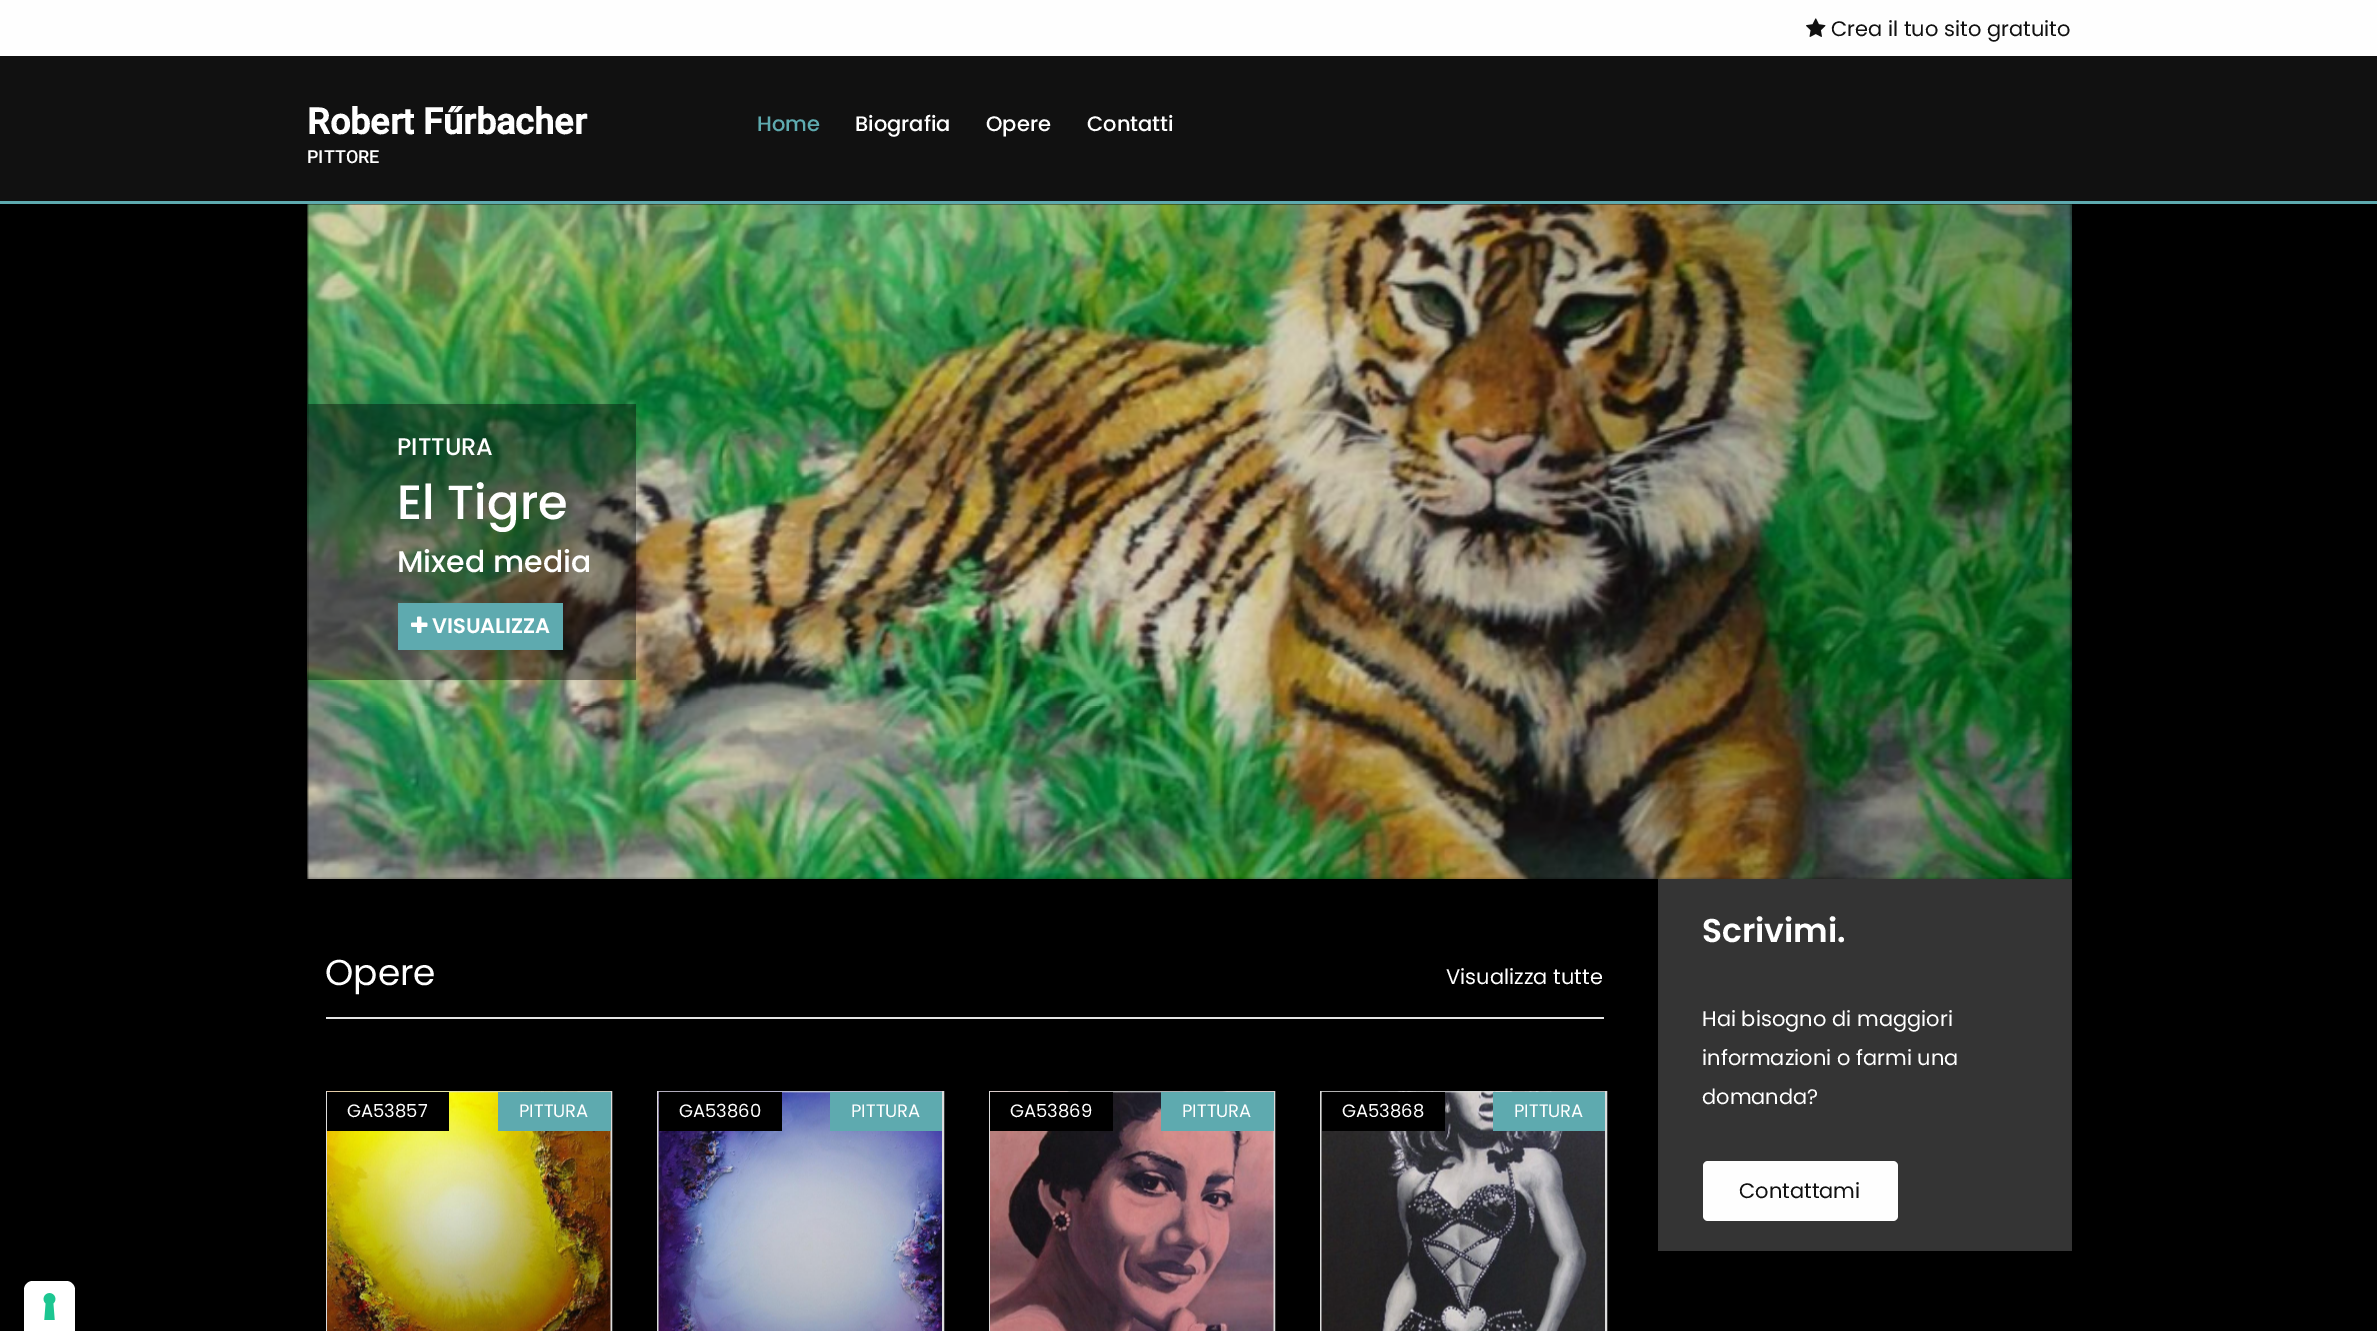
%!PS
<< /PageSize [2377 1331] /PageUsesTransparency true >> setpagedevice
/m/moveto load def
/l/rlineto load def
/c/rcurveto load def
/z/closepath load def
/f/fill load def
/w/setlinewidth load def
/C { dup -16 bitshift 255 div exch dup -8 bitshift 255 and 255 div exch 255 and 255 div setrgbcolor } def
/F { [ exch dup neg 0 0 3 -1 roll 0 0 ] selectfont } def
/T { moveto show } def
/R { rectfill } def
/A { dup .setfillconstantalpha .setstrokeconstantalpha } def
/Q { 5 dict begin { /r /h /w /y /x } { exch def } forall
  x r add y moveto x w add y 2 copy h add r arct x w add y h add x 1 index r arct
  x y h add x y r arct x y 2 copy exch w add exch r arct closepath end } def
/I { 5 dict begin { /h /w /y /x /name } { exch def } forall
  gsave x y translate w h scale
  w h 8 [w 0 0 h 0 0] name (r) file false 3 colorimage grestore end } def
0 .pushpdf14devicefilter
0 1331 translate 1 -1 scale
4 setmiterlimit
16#000000 C
0 0 2377 1331 R
16#FEFEFE C
0 0 2377 56 R
(1.rgb) 1806 18 20 19 I
/Poppins-Regular 21 F
16#111111 C
(Crea il tuo sito gratuito) 1831 36 T
0 56 2377 145 R
16#5EAAAF C
0 201 2377 3 R
/Roboto-Bold 36 F
16#FFFFFF C
(Robert Fűrbacher) 307 134 T
/Roboto-Medium 18 F
(PITTORE) 307 163 T
/Poppins-Medium 21 F
16#5EAAAF C
(Home) 757 131 T
16#FFFFFF C
(Biografia) 855 131 T
(Opere) 986 131 T
(Contatti) 1087 131 T
(2.rgb) 307 204 1765 675 I
0.4 A
16#000000 C
308 404 328 276 R
/Poppins-Medium 24 F
1 A
16#FFFFFF C
(PITTURA) 397 455 T
/Poppins-Medium 48 F
(El Tigre) 397 519 T
/Poppins-Medium 30 F
(Mixed media) 397 572 T
16#5EAAAF C
398 603 165 47 R
(3.rgb) 411 616 17 17 I
/Poppins-SemiBold 21 F
16#FFFFFF C
(VISUALIZZA) 432 633 T
16#E5E5E5 C
326 1017 1278 2 R
/Poppins-Regular 36 F
16#FFFFFF C
(Opere) 325 985 T
/Poppins-Regular 21 F
(Visualizza tutte) 1446 984 T
16#DDDDDD C
2 w
327 1092 284 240 rectstroke
(4.rgb) 327 1091 284 240 I
16#000000 C
327 1092 122 39 R
/Poppins-Regular 18 F
16#FFFFFF C
(GA53857) 347 1117 T
16#5EAAAF C
498 1092 113 39 R
16#FFFFFF C
(PITTURA) 519 1117 T
16#DDDDDD C
658 1092 285 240 rectstroke
(5.rgb) 658 1091 284 240 I
16#000000 C
659 1092 123 39 R
16#FFFFFF C
(GA53860) 679 1117 T
16#5EAAAF C
830 1092 112 39 R
16#FFFFFF C
(PITTURA) 851 1117 T
16#DDDDDD C
990 1092 284 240 rectstroke
(6.rgb) 990 1091 284 240 I
16#000000 C
990 1092 123 39 R
16#FFFFFF C
(GA53869) 1010 1117 T
16#5EAAAF C
1161 1092 113 39 R
16#FFFFFF C
(PITTURA) 1182 1117 T
16#DDDDDD C
1321 1092 285 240 rectstroke
(7.rgb) 1321 1091 284 240 I
16#000000 C
1322 1092 123 39 R
16#FFFFFF C
(GA53868) 1342 1117 T
16#5EAAAF C
1493 1092 112 39 R
16#FFFFFF C
(PITTURA) 1514 1117 T
16#343434 C
1658 879 414 372 R
/Poppins-SemiBold 33 F
16#FFFFFF C
(Scrivimi.) 1702 942 T
/Poppins-Regular 21 F
(Hai bisogno di maggiori) 1702 1026 T
(informazioni o farmi una) 1702 1065 T
(domanda?) 1702 1104 T
16#FEFEFE C
1703 1161 195 60 5 Q f
16#111111 C
(Contattami) 1739 1198 T
16#FFFFFF C
33 1281 m 33 0 l 5 0 9 4 9 9 c 0 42 l -51 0 l 0 -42 l 0 -5 4 -9 9 -9 c z f
(8.rgb) 43 1293 13 27 I
.poppdf14devicefilter showpage
